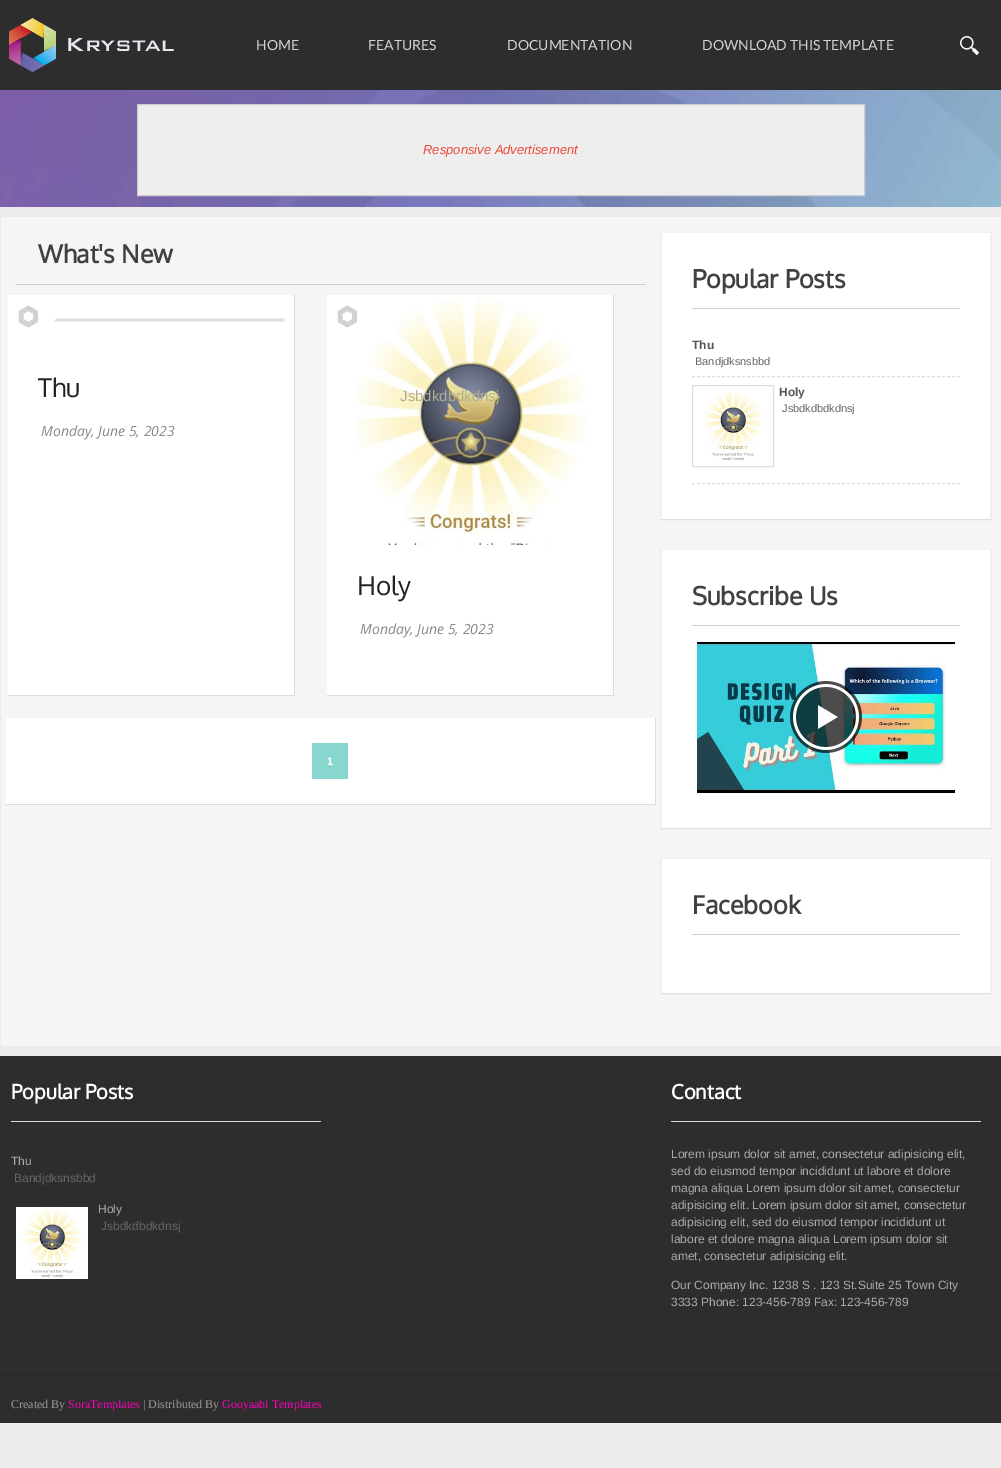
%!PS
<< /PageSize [1001 1468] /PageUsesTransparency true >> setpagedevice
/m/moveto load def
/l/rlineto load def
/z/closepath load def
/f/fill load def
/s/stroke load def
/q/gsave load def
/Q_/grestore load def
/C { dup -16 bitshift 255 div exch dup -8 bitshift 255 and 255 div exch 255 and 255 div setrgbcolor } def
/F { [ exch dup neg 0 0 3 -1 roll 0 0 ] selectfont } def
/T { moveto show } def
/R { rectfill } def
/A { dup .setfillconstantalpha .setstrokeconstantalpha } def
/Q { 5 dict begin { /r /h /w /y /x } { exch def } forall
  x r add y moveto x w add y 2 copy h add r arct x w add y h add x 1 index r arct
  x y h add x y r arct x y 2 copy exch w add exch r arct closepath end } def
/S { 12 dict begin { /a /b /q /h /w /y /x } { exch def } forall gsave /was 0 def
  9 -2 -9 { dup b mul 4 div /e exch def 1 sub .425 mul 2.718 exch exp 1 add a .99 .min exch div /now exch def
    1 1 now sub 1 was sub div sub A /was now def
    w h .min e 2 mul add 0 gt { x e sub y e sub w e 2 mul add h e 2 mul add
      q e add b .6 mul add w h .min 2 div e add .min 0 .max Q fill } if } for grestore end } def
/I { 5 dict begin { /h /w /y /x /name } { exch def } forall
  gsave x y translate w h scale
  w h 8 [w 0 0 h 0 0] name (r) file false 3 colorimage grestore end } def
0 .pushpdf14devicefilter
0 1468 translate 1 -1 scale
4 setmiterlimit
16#EBEBEB C
0 0 1001 1468 R
16#2D2D2D C
0 0 1001 90 R
(1.rgb) 9 18 165 55 I
/Lato-Regular 14 F
16#D3D3D3 C
(HOME) 256 50 T
(FEATURES) 368 50 T
(DOCUMENTATION) 507 50 T
(DOWNLOAD THIS TEMPLATE) 702 50 T
(2.rgb) 960 36 19 19 I
(3.rgb) 0 90 1001 117 I
16#EEEEEE C
137.5 104.5 m 727 0 l 0 91 l -727 0 l z q f Q_
16#CCCCCC C
s
/LiberationSans-Italic 13 F
16#EB4938 C
(Responsive Advertisement) 423 154 T
16#F5F5F5 C
1 217 1000 829 R
16#CECECE C
16 284 630 1 R
/Oxygen-Bold 25 F
16#414141 C
(What's New) 38 263 T
16#FFFFFF C
8 295 286 400 R
16#DCDCDC C
294 295 1 401 R
8 695 287 1 R
16#CCCCCC C
18 319 266 2 0 1 1 S
(4.rgb) 17 305 40 23 I
/Oxygen-Regular 26 F
16#222222 C
(Thu) 38 397 T
/OpenSans-Italic 14 F
16#888888 C
(Monday, June 5, 2023) 41 436 T
16#FFFFFF C
327 295 286 400 R
16#DCDCDC C
613 295 1 401 R
327 695 287 1 R
(6.rgb) 354 297 234 248 I
(5.rgb) 337 305 20 23 I
/LiberationSans-Regular 15 F
16#B2AE94 C
(Jsbdkdbdkdnsj) 400 401 T
/Oxygen-Regular 26 F
16#222222 C
(Holy) 357 595 T
/OpenSans-Italic 14 F
16#888888 C
(Monday, June 5, 2023) 360 634 T
16#FFFFFF C
6 718 649 86 R
16#DCDCDC C
655 718 1 87 R
6 804 650 1 R
16#88D7CF C
312 743 36 36 R
/LiberationSans-Bold 11 F
16#FFFFFF C
(1) 327 765 T
16#000000 C
661 233 330 287 0 .5 .1 S
16#FFFFFF C
662 233 328 286 R
16#F0F0F0 C
661 232 330 1 R
990 232 1 287 R
661 232 1 287 R
16#CECECE C
692 308 268 1 R
/Oxygen-Bold 25 F
16#414141 C
(Popular Posts) 692 288 T
16#DDDDDD C
[3 2] 0 setdash
692 376.5 m 268 0 l s
/LiberationSans-Bold 12 F
16#555555 C
(Thu) 692 349 T
/LiberationSans-Regular 11 F
16#666666 C
(Bandjdksnsbbd) 695 365 T
16#DDDDDD C
692 483.5 m 268 0 l s
[] 0 setdash
692.5 385.5 81 81 rectstroke
(7.rgb) 705 390 57 72 I
/LiberationSans-Bold 12 F
16#555555 C
(Holy) 779 396 T
/LiberationSans-Regular 11 F
16#666666 C
(Jsbdkdbdkdnsj) 782 412 T
16#000000 C
661 550 330 279 0 .5 .1 S
16#FFFFFF C
662 550 328 278 R
16#F0F0F0 C
661 549 330 1 R
990 549 1 279 R
661 549 1 279 R
16#CECECE C
692 625 268 1 R
/Oxygen-Bold 25 F
16#414141 C
(Subscribe Us) 692 605 T
16#000000 C
697 792 258 1 R
(8.rgb) 697 642 258 150 I
(9.rgb) 790 681 72 72 I
661 859 330 135 0 .5 .1 S
16#FFFFFF C
662 859 328 134 R
16#F0F0F0 C
661 858 330 1 R
990 858 1 135 R
661 858 1 135 R
16#CECECE C
692 934 268 1 R
16#414141 C
(Facebook) 692 914 T
16#2D2D2D C
0 1056 1001 367 R
16#D8D8D8 C
11 1121 310 1 R
/Oxygen-Bold 20 F
16#FFFFFF C
(Popular Posts) 11 1099 T
/LiberationSans-Regular 12 F
16#AAAAAA C
(Thu) 11 1165 T
16#666666 C
(Bandjdksnsbbd) 14 1182 T
(10.rgb) 16 1207 72 72 I
16#AAAAAA C
(Holy) 98 1213 T
16#666666 C
(Jsbdkdbdkdnsj) 101 1230 T
16#D8D8D8 C
671 1121 310 1 R
/Oxygen-Bold 20 F
16#FFFFFF C
(Contact) 671 1099 T
/LiberationSans-Regular 12 F
16#AAAAAA C
(Lorem ipsum dolor sit amet, consectetur adipisicing elit,) 671 1158 T
(sed do eiusmod tempor incididunt ut labore et dolore) 671 1175 T
(magna aliqua Lorem ipsum dolor sit amet, consectetur) 671 1192 T
(adipisicing elit. Lorem ipsum dolor sit amet, consectetur) 671 1209 T
(adipisicing elit, sed do eiusmod tempor incididunt ut) 671 1226 T
(labore et dolore magna aliqua Lorem ipsum dolor sit) 671 1243 T
(amet, consectetur adipisicing elit.) 671 1260 T
(Our Company Inc. 1238 S . 123 St.Suite 25 Town City) 671 1289 T
(3333 Phone: 123-456-789 Fax: 123-456-789) 671 1306 T
16#333333 C
0 1369 1001 1 R
/LiberationSerif-Regular 12 F
16#999999 C
(Created By) 11 1408 T
16#FF00BA C
(SoraTemplates) 68 1408 T
16#999999 C
(| Distributed By) 143 1408 T
16#FF00BA C
(Gooyaabi Templates) 222 1408 T
.poppdf14devicefilter showpage
